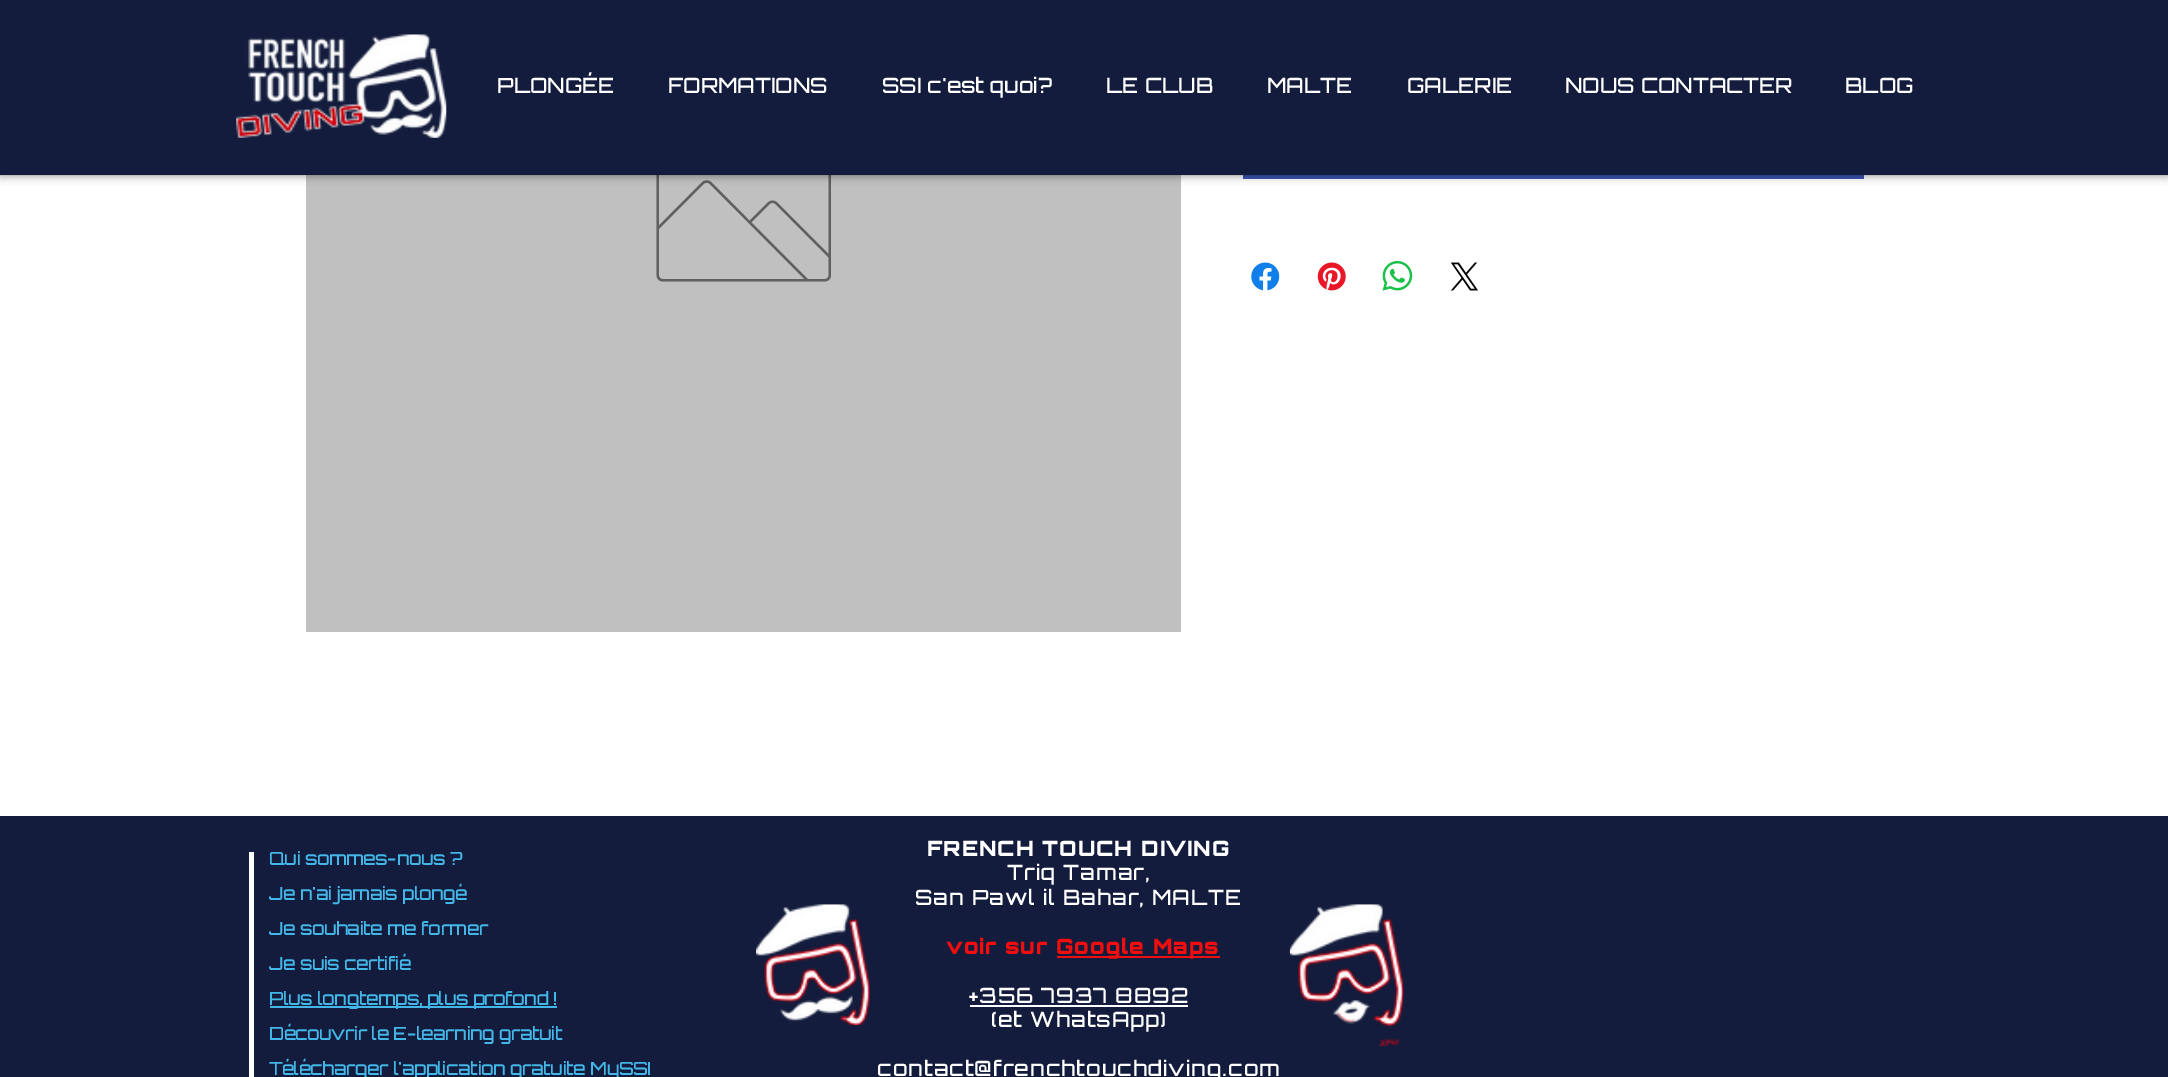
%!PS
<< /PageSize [2168 1077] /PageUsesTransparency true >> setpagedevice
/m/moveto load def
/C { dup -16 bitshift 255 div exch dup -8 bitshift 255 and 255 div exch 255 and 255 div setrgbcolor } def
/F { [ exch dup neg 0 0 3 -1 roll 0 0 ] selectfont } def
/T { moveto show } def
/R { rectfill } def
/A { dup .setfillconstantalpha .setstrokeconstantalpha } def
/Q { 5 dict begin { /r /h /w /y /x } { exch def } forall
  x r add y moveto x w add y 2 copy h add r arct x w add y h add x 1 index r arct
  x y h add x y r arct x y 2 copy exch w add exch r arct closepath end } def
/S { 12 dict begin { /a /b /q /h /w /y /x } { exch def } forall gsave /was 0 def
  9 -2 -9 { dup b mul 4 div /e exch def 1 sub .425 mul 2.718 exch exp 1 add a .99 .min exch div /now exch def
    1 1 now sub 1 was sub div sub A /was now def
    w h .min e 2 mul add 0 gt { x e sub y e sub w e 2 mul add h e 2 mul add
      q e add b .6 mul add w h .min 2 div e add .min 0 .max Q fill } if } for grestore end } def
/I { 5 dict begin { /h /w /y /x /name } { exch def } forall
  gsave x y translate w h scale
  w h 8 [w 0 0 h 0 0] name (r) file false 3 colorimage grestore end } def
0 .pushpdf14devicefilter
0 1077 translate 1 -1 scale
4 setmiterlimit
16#FFFFFF C
0 0 2168 1077 R
16#C0C0C0 C
306 175 875 457 R
(2.rgb) 656 175 175 107 I
16#3A54B4 C
1243 175 621 4 R
16#000000 C
0 0 2168 175 0 4.5 .5 S
16#131C3C C
0 0 2168 175 R
(1.rgb) 236 34 211 104 I
/Orbitron-Medium 21 F
16#FFFFFF C
(PLONGÉE) 497 93 T
(FORMATIONS) 668 93 T
(SSI c'est quoi?) 882 93 T
(LE CLUB) 1106 93 T
(MALTE) 1267 93 T
(GALERIE) 1407 93 T
(NOUS CONTACTER) 1565 93 T
(BLOG) 1845 93 T
(3.rgb) 1251 262 29 29 I
(4.rgb) 1317 262 29 29 I
(5.rgb) 1382 260 31 31 I
(6.rgb) 1450 262 28 29 I
16#131C3C C
0 816 2168 261 R
16#FFFFFF C
249 852 5 225 R
/Orbitron-Bold 17.5 F
16#43B7E8 C
(Qui sommes-nous ?) 269 865 T
(Je n'ai jamais plongé) 269 900 T
(Je souhaite me former) 269 935 T
(Je suis certifié) 269 970 T
270 1006 287 2 R
(Plus longtemps, plus profond !) 269 1005 T
(Découvrir le E-learning gratuit) 269 1040 T
(Télécharger l'application gratuite MySSI) 269 1075 T
(7.rgb) 756 904 114 121 I
/Orbitron-Black 21 F
16#FFFFFF C
927 856 m 1.05 0 (FRENCH TOUCH DIVING) ashow
/Orbitron-Medium 21 F
1007 880 m 1.05 0 (Triq Tamar,) ashow
915 905 m 1.05 0 (San Pawl il Bahar, MALTE) ashow
/Orbitron-Black 21 F
16#F00E0E C
946 954 m 1.05 0 (voir sur) ashow
1057 956 163 2 R
1056 954 m 1.05 0 (Google Maps) ashow
/Orbitron-Medium 21 F
16#FFFFFF C
969 1003 m 1.05 0 (+356 7937 8892) ashow
970 1005 218 2 R
991 1027 m 1.05 0 (\(et WhatsApp\)) ashow
877 1076 m 1.05 0 (contact@frenchtouchdiving.com) ashow
(8.rgb) 1289 904 115 142 I
.poppdf14devicefilter showpage
